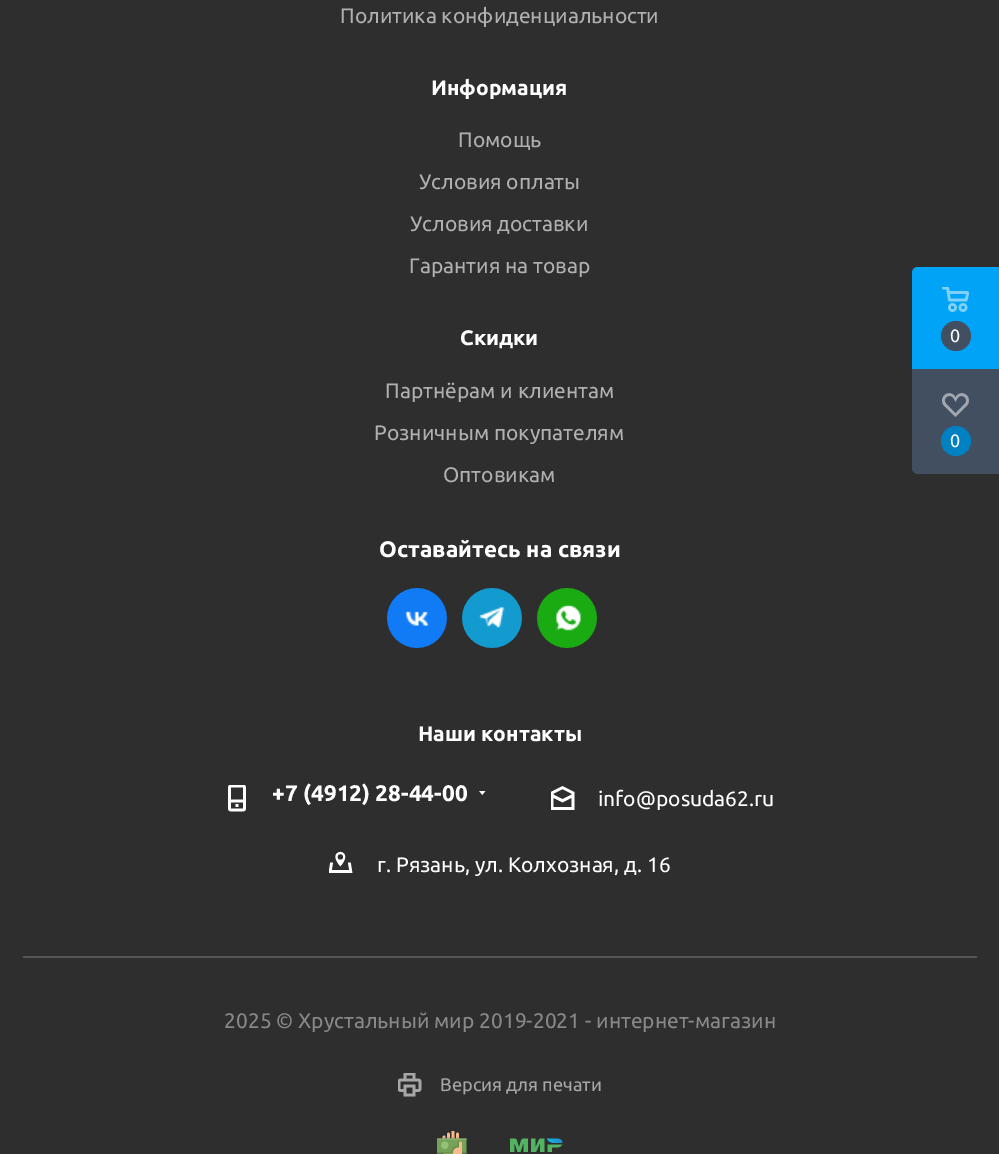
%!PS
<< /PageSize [999 1154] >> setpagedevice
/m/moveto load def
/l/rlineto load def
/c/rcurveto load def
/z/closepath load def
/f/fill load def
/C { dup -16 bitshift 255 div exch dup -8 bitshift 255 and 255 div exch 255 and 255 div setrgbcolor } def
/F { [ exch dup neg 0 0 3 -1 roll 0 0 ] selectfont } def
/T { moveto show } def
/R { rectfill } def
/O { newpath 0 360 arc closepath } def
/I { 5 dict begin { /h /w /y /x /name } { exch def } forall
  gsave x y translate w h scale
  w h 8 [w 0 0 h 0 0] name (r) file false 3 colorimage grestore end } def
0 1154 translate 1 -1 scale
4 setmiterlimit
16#2E2E2F C
0 0 999 1154 R
/Ubuntu-Regular 21 F
16#B0B0B0 C
(Политика конфиденциальности) 340 23 T
/Ubuntu-Bold 21 F
16#FFFFFF C
(Информация) 431 95 T
/Ubuntu-Regular 21 F
16#B0B0B0 C
(Помощь) 458 147 T
(Условия оплаты) 419 189 T
(Условия доставки) 410 231 T
(Гарантия на товар) 409 273 T
/Ubuntu-Bold 21 F
16#FFFFFF C
(Скидки) 460 345 T
/Ubuntu-Regular 21 F
16#B0B0B0 C
(Партнёрам и клиентам) 385 398 T
(Розничным покупателям) 374 440 T
(Оптовикам) 443 482 T
/Ubuntu-Bold 22.5 F
16#FFFFFF C
(Оставайтесь на связи) 379 557 T
(1.rgb) 387 588 60 60 I
(2.rgb) 462 588 60 60 I
(3.rgb) 537 588 60 60 I
/Ubuntu-Bold 21 F
(Наши контакты) 418 741 T
(4.rgb) 228 785 18 27 I
/Ubuntu-Bold 22.5 F
(+7 \(4912\) 28-44-00) 272 801 T
(5.rgb) 479 791 7 4 I
(6.rgb) 551 786 24 24 I
/Ubuntu-Regular 21 F
(info@posuda62.ru) 598 806 T
(7.rgb) 329 851 24 22 I
(г. Рязань, ул. Колхозная, д. 16) 377 872 T
16#555555 C
23 956 954 2 R
16#888888 C
(2025 © Хрустальный мир 2019-2021 - интернет-магазин) 224 1028 T
(8.rgb) 398 1073 24 24 I
/Ubuntu-Regular 18.25 F
16#A7A7A7 C
(Версия для печати) 440 1091 T
(9.rgb) 437 1131 30 23 I
(10.rgb) 510 1138 53 14 I
16#424F60 C
918 267 m 81 0 l 0 207 l -81 0 l -3.5 0 -6 -2.5 -6 -6 c 0 -195 l 0 -3.5 2.5 -6 6 -6 c z f
16#00A3F5 C
918 267 m 81 0 l 0 102 l -87 0 l 0 -96 l 0 -3.5 2.5 -6 6 -6 c z f
(11.rgb) 942 287 27 25 I
16#424F60 C
956 336 15 O f
/Ubuntu-Regular 18 F
16#FFFFFF C
(0) 950 342 T
(12.rgb) 942 393 27 24 I
16#0081C2 C
956 441 15 O f
16#FFFFFF C
(0) 950 447 T
showpage
